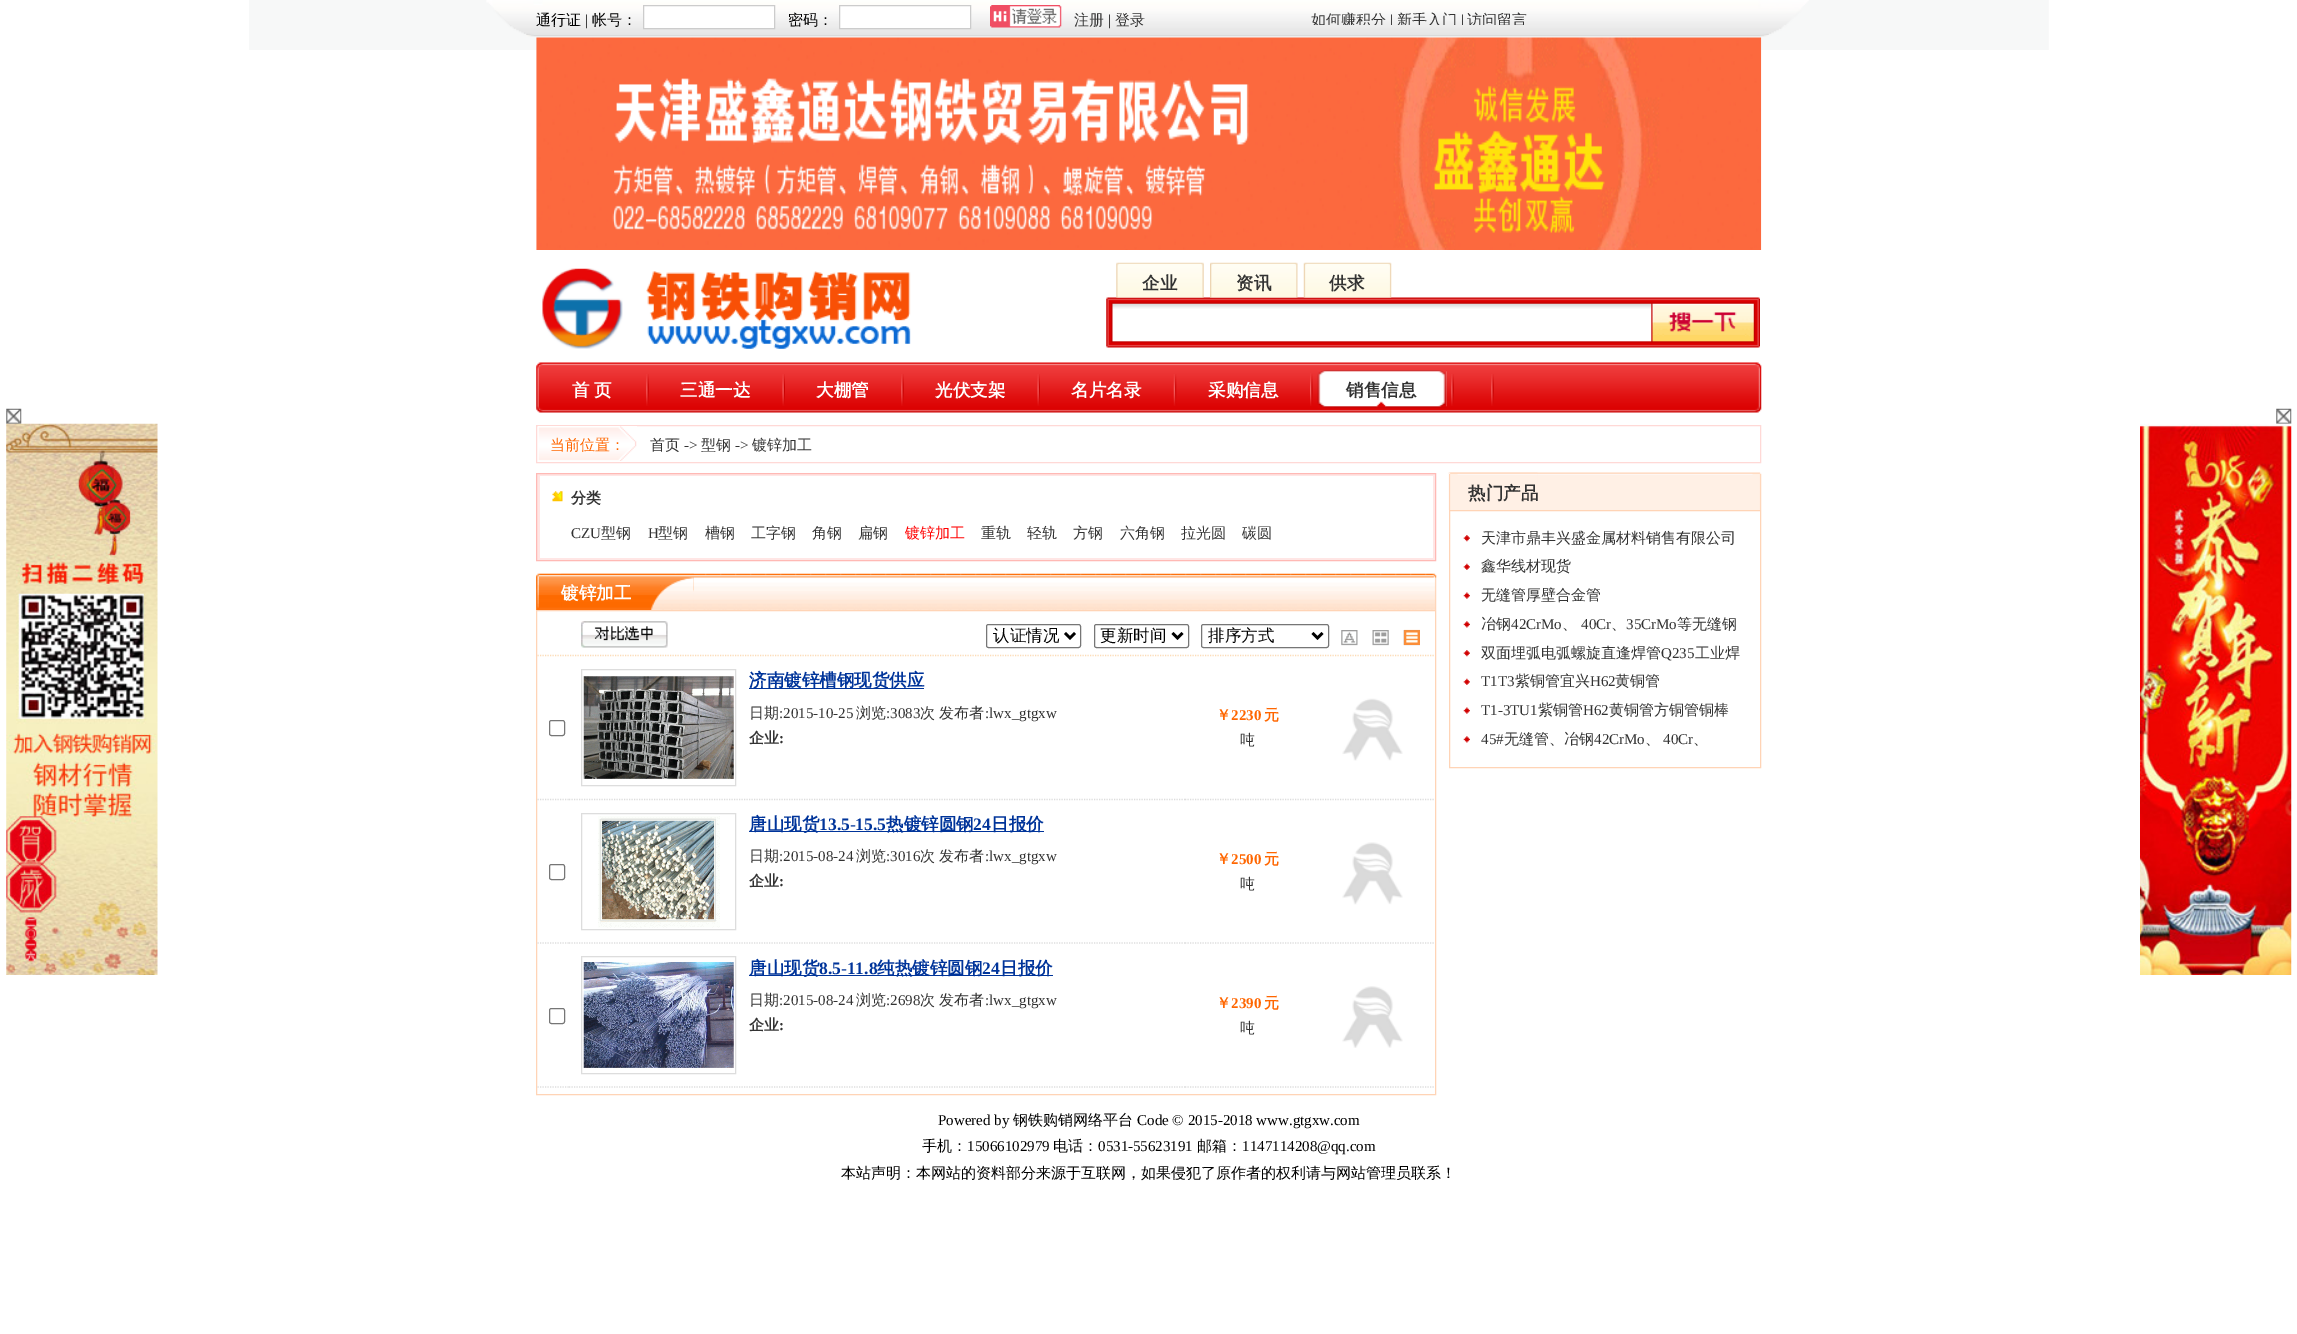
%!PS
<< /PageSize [2297 1334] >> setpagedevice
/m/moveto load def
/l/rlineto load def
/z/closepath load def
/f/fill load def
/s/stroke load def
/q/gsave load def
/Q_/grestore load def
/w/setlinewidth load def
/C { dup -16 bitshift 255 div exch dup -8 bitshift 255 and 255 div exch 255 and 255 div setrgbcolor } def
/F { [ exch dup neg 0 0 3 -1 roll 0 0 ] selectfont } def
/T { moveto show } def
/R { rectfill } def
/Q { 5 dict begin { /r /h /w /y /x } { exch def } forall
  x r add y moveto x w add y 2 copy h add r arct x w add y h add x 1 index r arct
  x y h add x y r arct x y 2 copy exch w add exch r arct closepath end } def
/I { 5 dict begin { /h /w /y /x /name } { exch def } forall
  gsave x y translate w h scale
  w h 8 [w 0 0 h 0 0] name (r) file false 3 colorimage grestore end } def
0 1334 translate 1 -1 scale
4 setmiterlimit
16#FFFFFF C
0 0 2297 1334 R
(1.rgb) 249 0 1800 50 I
/WenQuanYiZenHei-Medium 15 F
16#000000 C
(通行证) 536 25 T
/LiberationSerif-Regular 15 F
(|) 585 25 T
/WenQuanYiZenHei-Medium 15 F
(帐号：) 592 25 T
16#FFFFFF C
643.5 5.5 m 131 0 l 0 23 l -131 0 l z q f Q_
16#CCCCCC C
s
16#000000 C
(密码：) 788 25 T
16#FFFFFF C
839.5 5.5 m 131 0 l 0 23 l -131 0 l z q f Q_
16#CCCCCC C
s
(2.rgb) 990 5 72 23 I
16#333333 C
(注册) 1074 25 T
/LiberationSerif-Regular 15 F
16#000000 C
(|) 1108 25 T
/WenQuanYiZenHei-Medium 15 F
16#333333 C
(登录) 1115 25 T
q
1311 0 250 25 rectclip
(如何赚积分) 1311 25 T
/LiberationSerif-Regular 15 F
16#000000 C
(|) 1390 25 T
/WenQuanYiZenHei-Medium 15 F
16#333333 C
(新手入门) 1397 25 T
/LiberationSerif-Regular 15 F
16#000000 C
(|) 1461 25 T
/WenQuanYiZenHei-Medium 15 F
16#333333 C
(访问留言) 1467 25 T
Q_
(3.rgb) 536 37 1226 213 I
(4.rgb) 542 268 369 81 I
(5.rgb) 1106 297 654 51 I
(6.rgb) 1116 262 88 36 I
/WenQuanYiZenHei-Bold 17.5 F
(企业) 1142 289 T
(7.rgb) 1210 262 88 36 I
(资讯) 1236 289 T
(8.rgb) 1303 262 89 36 I
(供求) 1329 289 T
(9.rgb) 1668 312 69 20 I
(10.rgb) 536 362 1226 51 I
(11.rgb) 646 374 3 32 I
16#FFFFFF C
572 396 m -1 0 32 (首 页) widthshow
(12.rgb) 782 374 3 32 I
(三通一达) 680 396 T
(11.rgb) 901 374 3 32 I
(大棚管) 816 396 T
(12.rgb) 1037 374 3 32 I
(光伏支架) 935 396 T
(13.rgb) 1173 374 4 32 I
(名片名录) 1071 396 T
(14.rgb) 1310 373 3 33 I
(采购信息) 1208 396 T
(11.rgb) 1451 374 3 32 I
(15.rgb) 1317 370 130 38 I
(16.rgb) 1334 370 113 38 I
(17.rgb) 1376 401 11 7 I
16#333333 C
(销售信息) 1346 396 T
(11.rgb) 1491 374 3 32 I
(18.rgb) 6 408 16 16 I
(19.rgb) 6 423 152 552 I
16#FFD9D6 C
536.5 425.5 1224 37 rectstroke
(20.rgb) 538 426 99 35 I
/WenQuanYiZenHei-Medium 15 F
16#FF6600 C
(当前位置：) 550 450 T
16#333333 C
(首页) 650 450 T
/LiberationSerif-Regular 15 F
(->) 684 450 T
/WenQuanYiZenHei-Medium 15 F
(型钢) 701 450 T
/LiberationSerif-Regular 15 F
(->) 735 450 T
/WenQuanYiZenHei-Medium 15 F
(镀锌加工) 752 450 T
16#FFE6E5 C
536.5 473.5 m 899 0 l 0 87 l -899 0 l z q f Q_
16#FFB9B5 C
s
16#FFFFFF C
540 476 893 82 R
(21.rgb) 552 491 11 11 I
/WenQuanYiZenHei-Bold 15 F
16#333333 C
(分类) 571 503 T
/LiberationSerif-Regular 15 F
(CZU) 571 538 T
/WenQuanYiZenHei-Medium 15 F
(型钢) 601 538 T
/LiberationSerif-Regular 15 F
(H) 648 538 T
/WenQuanYiZenHei-Medium 15 F
(型钢) 658 538 T
(槽钢) 705 538 T
(工字钢) 751 538 T
(角钢) 812 538 T
(扁钢) 858 538 T
16#FF0000 C
(镀锌加工) 905 538 T
16#333333 C
(重轨) 981 538 T
(轻轨) 1027 538 T
(方钢) 1073 538 T
(六角钢) 1120 538 T
(拉光圆) 1181 538 T
(碳圆) 1242 538 T
(22.rgb) 536 573 901 37 I
(23.rgb) 536 573 158 37 I
(24.rgb) 561 573 133 37 I
/WenQuanYiZenHei-Bold 17.5 F
16#FFFFFF C
(镀锌加工) 561 599 T
16#FFD4B6 C
536.5 610.5 899 484 rectstroke
16#FDDCB7 C
1.2 w
[1.25 1.25] 0 setdash
537.5 655.5 m 897.5 0 l s
(25.rgb) 581 621 87 27 I
16#767676 C
1 w
[] 0 setdash
986.5 624.5 94 23 2 Q s
16#000000 C
2.5 w
1065 633 m 5 5 l 5 -5 l s
/WenQuanYiZenHei-Medium 16.5 F
(认证情况) 993 641 T
16#767676 C
1 w
1094.5 624.5 94 23 2 Q s
16#000000 C
2.5 w
1172.5 633 m 5 5 l 5 -5 l s
(更新时间) 1100 641 T
16#767676 C
1 w
1201.5 624.5 127 23 2 Q s
16#000000 C
2.5 w
1312.5 633 m 5 5 l 5 -5 l s
(排序方式) 1208 641 T
(26.rgb) 1341 630 17 16 I
(27.rgb) 1372 630 17 16 I
(28.rgb) 1403 630 17 16 I
(29.rgb) 1403 629 17 16 I
16#DDDDDD C
1.2 w
[1.25 1.25] 0 setdash
537.5 799.5 m 31.5 0 l s
16#767676 C
1 w
[] 0 setdash
549.5 720.5 15 15 2 Q s
16#DDDDDD C
1.2 w
[1.25 1.25] 0 setdash
569 799.5 m 180 0 l s
1 w
[] 0 setdash
581.5 669.5 154 116 rectstroke
(30.rgb) 583 676 151 103 I
1.2 w
[1.25 1.25] 0 setdash
749 799.5 m 436 0 l s
16#00349A C
749 688 175 1 R
/WenQuanYiZenHei-Bold 17.5 F
(济南镀锌槽钢现货供应) 749 686 T
/WenQuanYiZenHei-Medium 15 F
16#333333 C
(日期) 749 718 T
/LiberationSerif-Regular 15 F
(:2015-10-25) 779 718 T
/WenQuanYiZenHei-Medium 15 F
(浏览) 856 718 T
/LiberationSerif-Regular 15 F
(:3083) 886 718 T
/WenQuanYiZenHei-Medium 15 F
(次 发布者) 920 718 T
/LiberationSerif-Regular 15 F
(:lwx_gtgxw) 985 718 T
/WenQuanYiZenHei-Bold 15 F
(企业) 749 743 T
/LiberationSerif-Bold 15 F
(:) 779 743 T
16#DDDDDD C
1185 799.5 m 125 0 l s
/WenQuanYiZenHei-Bold 15 F
16#FF6600 C
(￥) 1216 720 T
/LiberationSerif-Bold 15 F
(2230) 1231 720 T
/WenQuanYiZenHei-Bold 15 F
(元) 1264 720 T
/WenQuanYiZenHei-Medium 15 F
16#333333 C
(吨) 1240 745 T
16#DDDDDD C
1310 799.5 m 125 0 l s
(31.rgb) 1342 698 61 63 I
537.5 943 m 31.5 0 l s
16#767676 C
1 w
[] 0 setdash
549.5 864.5 15 15 2 Q s
16#DDDDDD C
1.2 w
[1.25 1.25] 0 setdash
569 943 m 180 0 l s
1 w
[] 0 setdash
581.5 813.5 154 116 rectstroke
(32.rgb) 598 816 122 112 I
1.2 w
[1.25 1.25] 0 setdash
749 943 m 436 0 l s
16#00349A C
749 831 295 1 R
/WenQuanYiZenHei-Bold 17.5 F
(唐山现货) 749 830 T
/LiberationSerif-Bold 17.5 F
(13.5-15.5) 819 830 T
/WenQuanYiZenHei-Bold 17.5 F
(热镀锌圆钢) 886 830 T
/LiberationSerif-Bold 17.5 F
(24) 973 830 T
/WenQuanYiZenHei-Bold 17.5 F
(日报价) 991 830 T
/WenQuanYiZenHei-Medium 15 F
16#333333 C
(日期) 749 861 T
/LiberationSerif-Regular 15 F
(:2015-08-24) 779 861 T
/WenQuanYiZenHei-Medium 15 F
(浏览) 856 861 T
/LiberationSerif-Regular 15 F
(:3016) 886 861 T
/WenQuanYiZenHei-Medium 15 F
(次 发布者) 920 861 T
/LiberationSerif-Regular 15 F
(:lwx_gtgxw) 985 861 T
/WenQuanYiZenHei-Bold 15 F
(企业) 749 886 T
/LiberationSerif-Bold 15 F
(:) 779 886 T
16#DDDDDD C
1185 943 m 125 0 l s
/WenQuanYiZenHei-Bold 15 F
16#FF6600 C
(￥) 1216 864 T
/LiberationSerif-Bold 15 F
(2500) 1231 864 T
/WenQuanYiZenHei-Bold 15 F
(元) 1264 864 T
/WenQuanYiZenHei-Medium 15 F
16#333333 C
(吨) 1240 889 T
16#DDDDDD C
1310 943 m 125 0 l s
(33.rgb) 1342 842 61 63 I
537.5 1087 m 31.5 0 l s
16#767676 C
1 w
[] 0 setdash
549.5 1008.5 15 15 2 Q s
16#DDDDDD C
1.2 w
[1.25 1.25] 0 setdash
569 1087 m 180 0 l s
1 w
[] 0 setdash
581.5 956.5 154 117 rectstroke
(34.rgb) 583 962 151 106 I
1.2 w
[1.25 1.25] 0 setdash
749 1087 m 436 0 l s
16#00349A C
749 975 304 1 R
/WenQuanYiZenHei-Bold 17.5 F
(唐山现货) 749 974 T
/LiberationSerif-Bold 17.5 F
(8.5-11.8) 819 974 T
/WenQuanYiZenHei-Bold 17.5 F
(纯热镀锌圆钢) 877 974 T
/LiberationSerif-Bold 17.5 F
(24) 982 974 T
/WenQuanYiZenHei-Bold 17.5 F
(日报价) 1000 974 T
/WenQuanYiZenHei-Medium 15 F
16#333333 C
(日期) 749 1005 T
/LiberationSerif-Regular 15 F
(:2015-08-24) 779 1005 T
/WenQuanYiZenHei-Medium 15 F
(浏览) 856 1005 T
/LiberationSerif-Regular 15 F
(:2698) 886 1005 T
/WenQuanYiZenHei-Medium 15 F
(次 发布者) 920 1005 T
/LiberationSerif-Regular 15 F
(:lwx_gtgxw) 985 1005 T
/WenQuanYiZenHei-Bold 15 F
(企业) 749 1030 T
/LiberationSerif-Bold 15 F
(:) 779 1030 T
16#DDDDDD C
1185 1087 m 125 0 l s
/WenQuanYiZenHei-Bold 15 F
16#FF6600 C
(￥) 1216 1008 T
/LiberationSerif-Bold 15 F
(2390) 1231 1008 T
/WenQuanYiZenHei-Bold 15 F
(元) 1264 1008 T
/WenQuanYiZenHei-Medium 15 F
16#333333 C
(吨) 1240 1033 T
16#DDDDDD C
1310 1087 m 125 0 l s
(35.rgb) 1342 986 61 62 I
(36.rgb) 1448 472 314 38 I
(37.rgb) 1449 472 89 38 I
/WenQuanYiZenHei-Bold 17.5 F
16#333333 C
(热门产品) 1468 499 T
16#FFD4B6 C
1 w
[] 0 setdash
1449.5 510.5 311 257 rectstroke
(38.rgb) 1463 535 7 7 I
/WenQuanYiZenHei-Medium 15 F
16#333333 C
(天津市鼎丰兴盛金属材料销售有限公司) 1481 543 T
(39.rgb) 1463 563 7 7 I
(鑫华线材现货) 1481 571 T
(40.rgb) 1463 592 7 7 I
(无缝管厚壁合金管) 1481 600 T
(41.rgb) 1463 621 7 7 I
(冶钢) 1481 629 T
/LiberationSerif-Regular 15 F
(42CrMo) 1511 629 T
/WenQuanYiZenHei-Medium 15 F
(、) 1562 629 T
/LiberationSerif-Regular 15 F
(40Cr) 1581 629 T
/WenQuanYiZenHei-Medium 15 F
(、) 1611 629 T
/LiberationSerif-Regular 15 F
(35CrMo) 1626 629 T
/WenQuanYiZenHei-Medium 15 F
(等无缝钢) 1677 629 T
(38.rgb) 1463 650 7 7 I
(双面埋弧电弧螺旋直逢焊管) 1481 658 T
/LiberationSerif-Regular 15 F
(Q235) 1661 658 T
/WenQuanYiZenHei-Medium 15 F
(工业焊) 1695 658 T
(39.rgb) 1463 678 7 7 I
/LiberationSerif-Regular 15 F
(T1T3) 1481 686 T
/WenQuanYiZenHei-Medium 15 F
(紫铜管宜兴) 1515 686 T
/LiberationSerif-Regular 15 F
(H62) 1590 686 T
/WenQuanYiZenHei-Medium 15 F
(黄铜管) 1615 686 T
(40.rgb) 1463 707 7 7 I
/LiberationSerif-Regular 15 F
(T1-3TU1) 1481 715 T
/WenQuanYiZenHei-Medium 15 F
(紫铜管) 1538 715 T
/LiberationSerif-Regular 15 F
(H62) 1583 715 T
/WenQuanYiZenHei-Medium 15 F
(黄铜管方铜管铜棒) 1609 715 T
(41.rgb) 1463 736 7 7 I
/LiberationSerif-Regular 15 F
(45#) 1481 744 T
/WenQuanYiZenHei-Medium 15 F
(无缝管、冶钢) 1504 744 T
/LiberationSerif-Regular 15 F
(42CrMo) 1594 744 T
/WenQuanYiZenHei-Medium 15 F
(、) 1645 744 T
/LiberationSerif-Regular 15 F
(40Cr) 1663 744 T
/WenQuanYiZenHei-Medium 15 F
(、) 1693 744 T
/LiberationSerif-Regular 15 F
16#000000 C
(Powered by) 938 1125 T
/WenQuanYiZenHei-Medium 15 F
(钢铁购销网络平台) 1013 1125 T
/LiberationSerif-Regular 15 F
(Code © 2015-2018 www.gtgxw.com) 1137 1125 T
/WenQuanYiZenHei-Medium 15 F
(手机：) 922 1151 T
/LiberationSerif-Regular 15 F
(15066102979) 967 1151 T
/WenQuanYiZenHei-Medium 15 F
(电话：) 1053 1151 T
/LiberationSerif-Regular 15 F
(0531-55623191) 1098 1151 T
/WenQuanYiZenHei-Medium 15 F
(邮箱：) 1197 1151 T
/LiberationSerif-Regular 15 F
(1147114208@qq.com) 1242 1151 T
/WenQuanYiZenHei-Medium 15 F
(本站声明：本网站的资料部分来源于互联网，如果侵犯了原作者的权利请与网站管理员联系！) 841 1178 T
(18.rgb) 2276 408 16 16 I
(42.rgb) 2140 423 152 552 I
showpage
